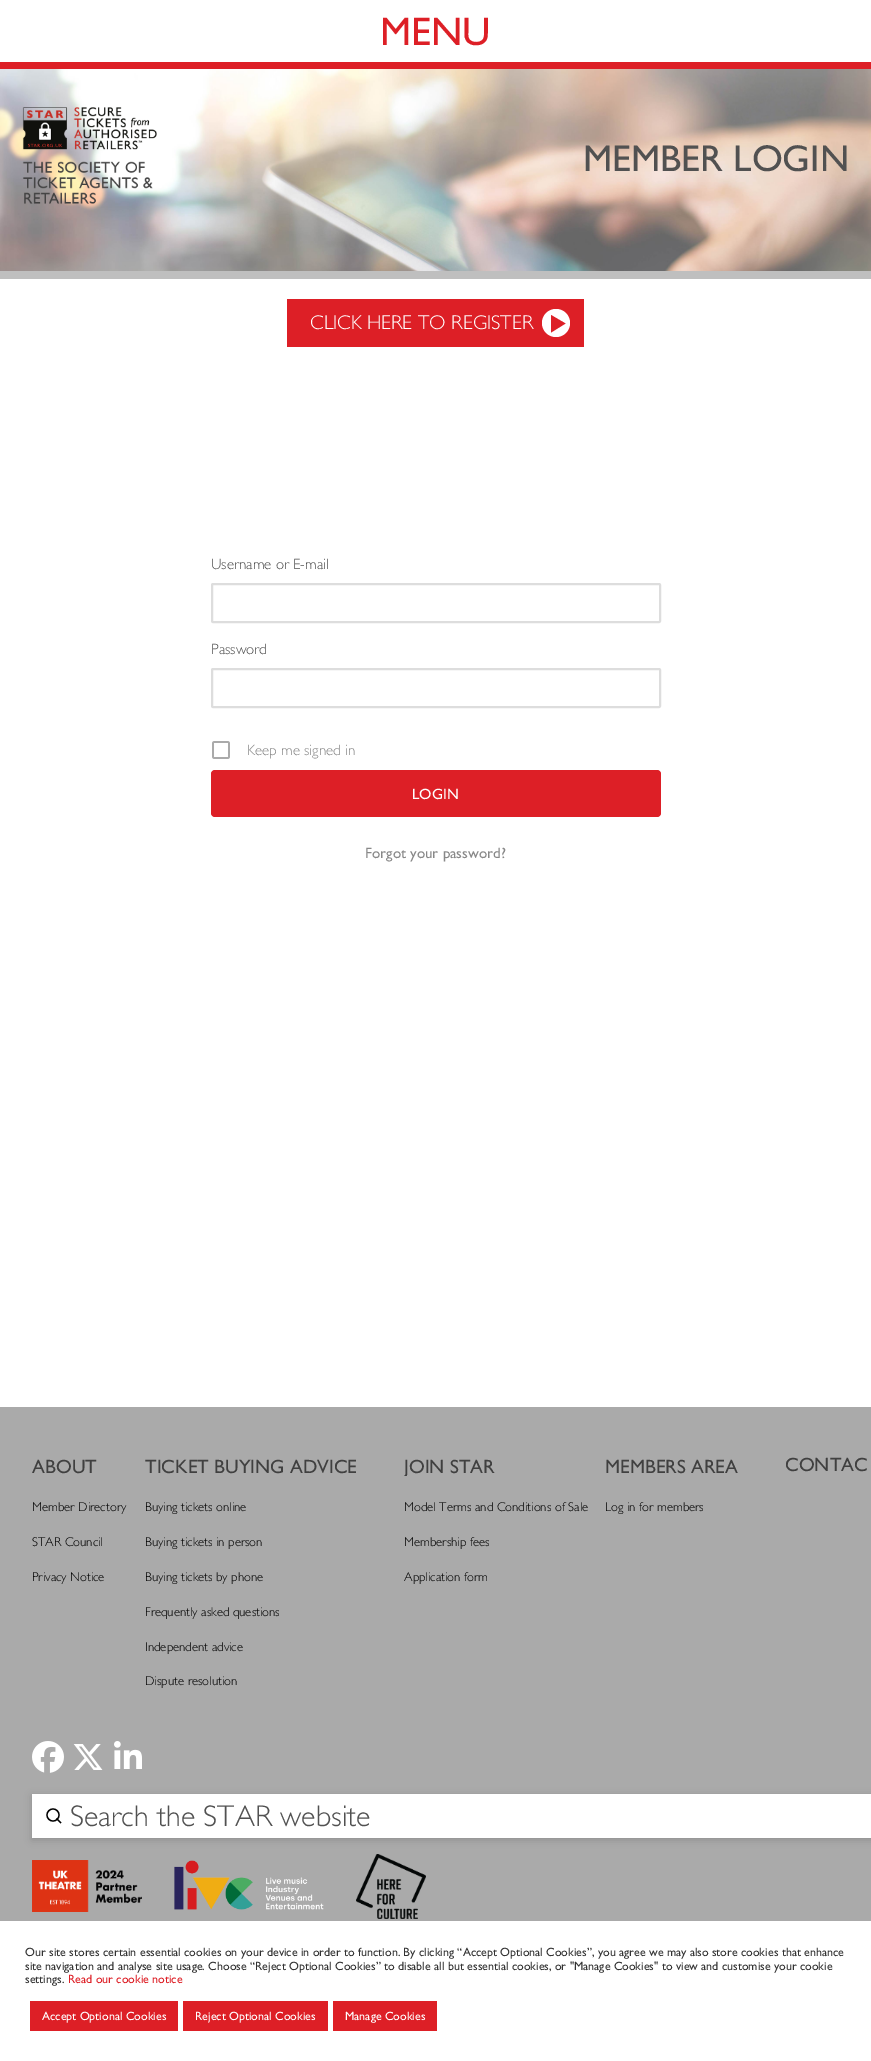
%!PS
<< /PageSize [871 2061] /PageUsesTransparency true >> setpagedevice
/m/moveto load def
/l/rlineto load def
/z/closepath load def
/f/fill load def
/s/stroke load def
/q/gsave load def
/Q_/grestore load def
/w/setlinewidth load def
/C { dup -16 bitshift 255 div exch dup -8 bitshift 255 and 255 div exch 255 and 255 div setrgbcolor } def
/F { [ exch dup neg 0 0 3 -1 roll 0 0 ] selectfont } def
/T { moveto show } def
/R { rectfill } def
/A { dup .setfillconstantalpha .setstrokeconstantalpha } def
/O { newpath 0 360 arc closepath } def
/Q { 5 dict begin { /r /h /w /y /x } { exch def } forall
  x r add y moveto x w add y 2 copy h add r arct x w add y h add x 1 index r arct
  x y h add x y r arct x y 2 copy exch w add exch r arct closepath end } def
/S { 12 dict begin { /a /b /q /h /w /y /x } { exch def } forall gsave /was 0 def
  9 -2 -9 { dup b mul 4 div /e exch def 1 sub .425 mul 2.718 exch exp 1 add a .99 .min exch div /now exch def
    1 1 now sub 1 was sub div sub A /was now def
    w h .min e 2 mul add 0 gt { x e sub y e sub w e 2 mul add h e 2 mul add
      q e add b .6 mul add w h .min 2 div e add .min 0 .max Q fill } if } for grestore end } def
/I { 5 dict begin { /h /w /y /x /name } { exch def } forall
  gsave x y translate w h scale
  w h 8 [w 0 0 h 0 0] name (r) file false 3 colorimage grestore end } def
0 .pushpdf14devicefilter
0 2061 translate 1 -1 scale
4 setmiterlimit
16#FFFFFF C
0 0 871 2061 R
16#DD1F26 C
0 62 871 7 R
/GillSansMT-Regular 40 F
(MENU) 380 45 T
(1.rgb) 0 69 871 202 I
16#BFBFBF C
0 271 871 8 R
/GillSansMT-Regular 37.5 F
16#515151 C
(MEMBER LOGIN) 583 171 T
16#DD1F26 C
287 299 297 48 R
16#FFFFFF C
556 323 14 O f
16#DD1F26 C
565.5 323.5 m -14.5 9 l 0 -17.5 l z eofill
/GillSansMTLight-Light 20 F
16#FFFFFF C
(CLICK HERE TO REGISTER) 310 329 T
/GillSansMTLight-Light 15 F
16#515151 C
(Username or E-mail) 211 569 T
16#DDDDDD C
2 w
212 584 448 38 1 Q s
16#515151 C
(Password) 211 654 T
16#DDDDDD C
212 669 448 38 1 Q s
(2.rgb) 212 741 18 18 I
16#888888 C
(Keep me signed in) 247 755 T
16#DD1F26 C
211 770 450 47 4 Q f
/GillSansMT-Regular 15 F
16#FFFFFF C
(LOGIN) 412 799 T
16#888888 C
(Forgot your password?) 365 858 T
16#AAAAAA C
0 1407 871 514 R
/GillSansMT-Regular 19.25 F
16#404040 C
(ABOUT) 32 1473 T
/GillSansMTLight-Light 12.75 F
16#000000 C
(Member Directory) 32 1511 T
(STAR Council) 32 1546 T
(Privacy Notice) 32 1581 T
/GillSansMT-Regular 19.25 F
16#404040 C
(TICKET BUYING ADVICE) 145 1473 T
/GillSansMTLight-Light 12.75 F
16#000000 C
(Buying tickets online) 145 1511 T
(Buying tickets in person) 145 1546 T
(Buying tickets by phone) 145 1581 T
(Frequently asked questions) 145 1616 T
(Independent advice) 145 1651 T
(Dispute resolution) 145 1685 T
q
404 1457 138 19 rectclip
/GillSansMT-Regular 19.25 F
16#404040 C
(JOIN STAR) 404 1473 T
Q_
(Model Terms and Conditions of Sale) 404 1511 T
(Membership fees) 404 1546 T
(Application form) 404 1581 T
/GillSansMT-Regular 19.25 F
16#404040 C
(MEMBERS AREA) 605 1473 T
/GillSansMTLight-Light 12.75 F
16#000000 C
(Log in for members) 605 1511 T
/GillSansMT-Regular 19.25 F
16#404040 C
(CONTAC) 785 1471 T
(3.rgb) 32 1741 32 32 I
(4.rgb) 73 1744 30 26 I
(5.rgb) 114 1741 28 28 I
16#000000 C
32 1796 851 44 0 4 .15 S
16#FFFFFF C
32 1794 839 44 R
16#000000 C
1.3 w
53 1815 6 O s
2 setlinecap
60.5 1822.5 m -3.5 -3.5 l s
/GillSansMTLight-Light 30 F
16#515151 C
(Search the STAR website) 70 1826 T
(6.rgb) 32 1860 110 52 I
(7.rgb) 174 1860 150 50 I
(8.rgb) 356 1854 70 65 I
16#ACABAB C
0 1920 871 140 0 5 .3 S
16#FFFFFF C
0 1921 871 140 R
/GillSansMT-Regular 12 F
16#333333 C
(Our site stores certain essential cookies on your device in order to function. By clicking “Accept Optional Cookies”, you agree we may also store cookies that enhance) 25 1956 T
(site navigation and analyse site usage. Choose “Reject Optional Cookies” to disable all but essential cookies, or "Manage Cookies" to view and customise your cookie) 25 1970 T
(settings.) 25 1983 T
16#DD1F26 C
(Read our cookie notice) 68 1983 T
30 2001 148 30 R
16#FFFFFF C
(Accept Optional Cookies) 42 2020 T
16#DD1F26 C
183 2001 145 30 R
16#FFFFFF C
(Reject Optional Cookies) 195 2020 T
16#DD1F26 C
333 2001 104 30 R
16#FFFFFF C
(Manage Cookies) 345 2020 T
.poppdf14devicefilter showpage
